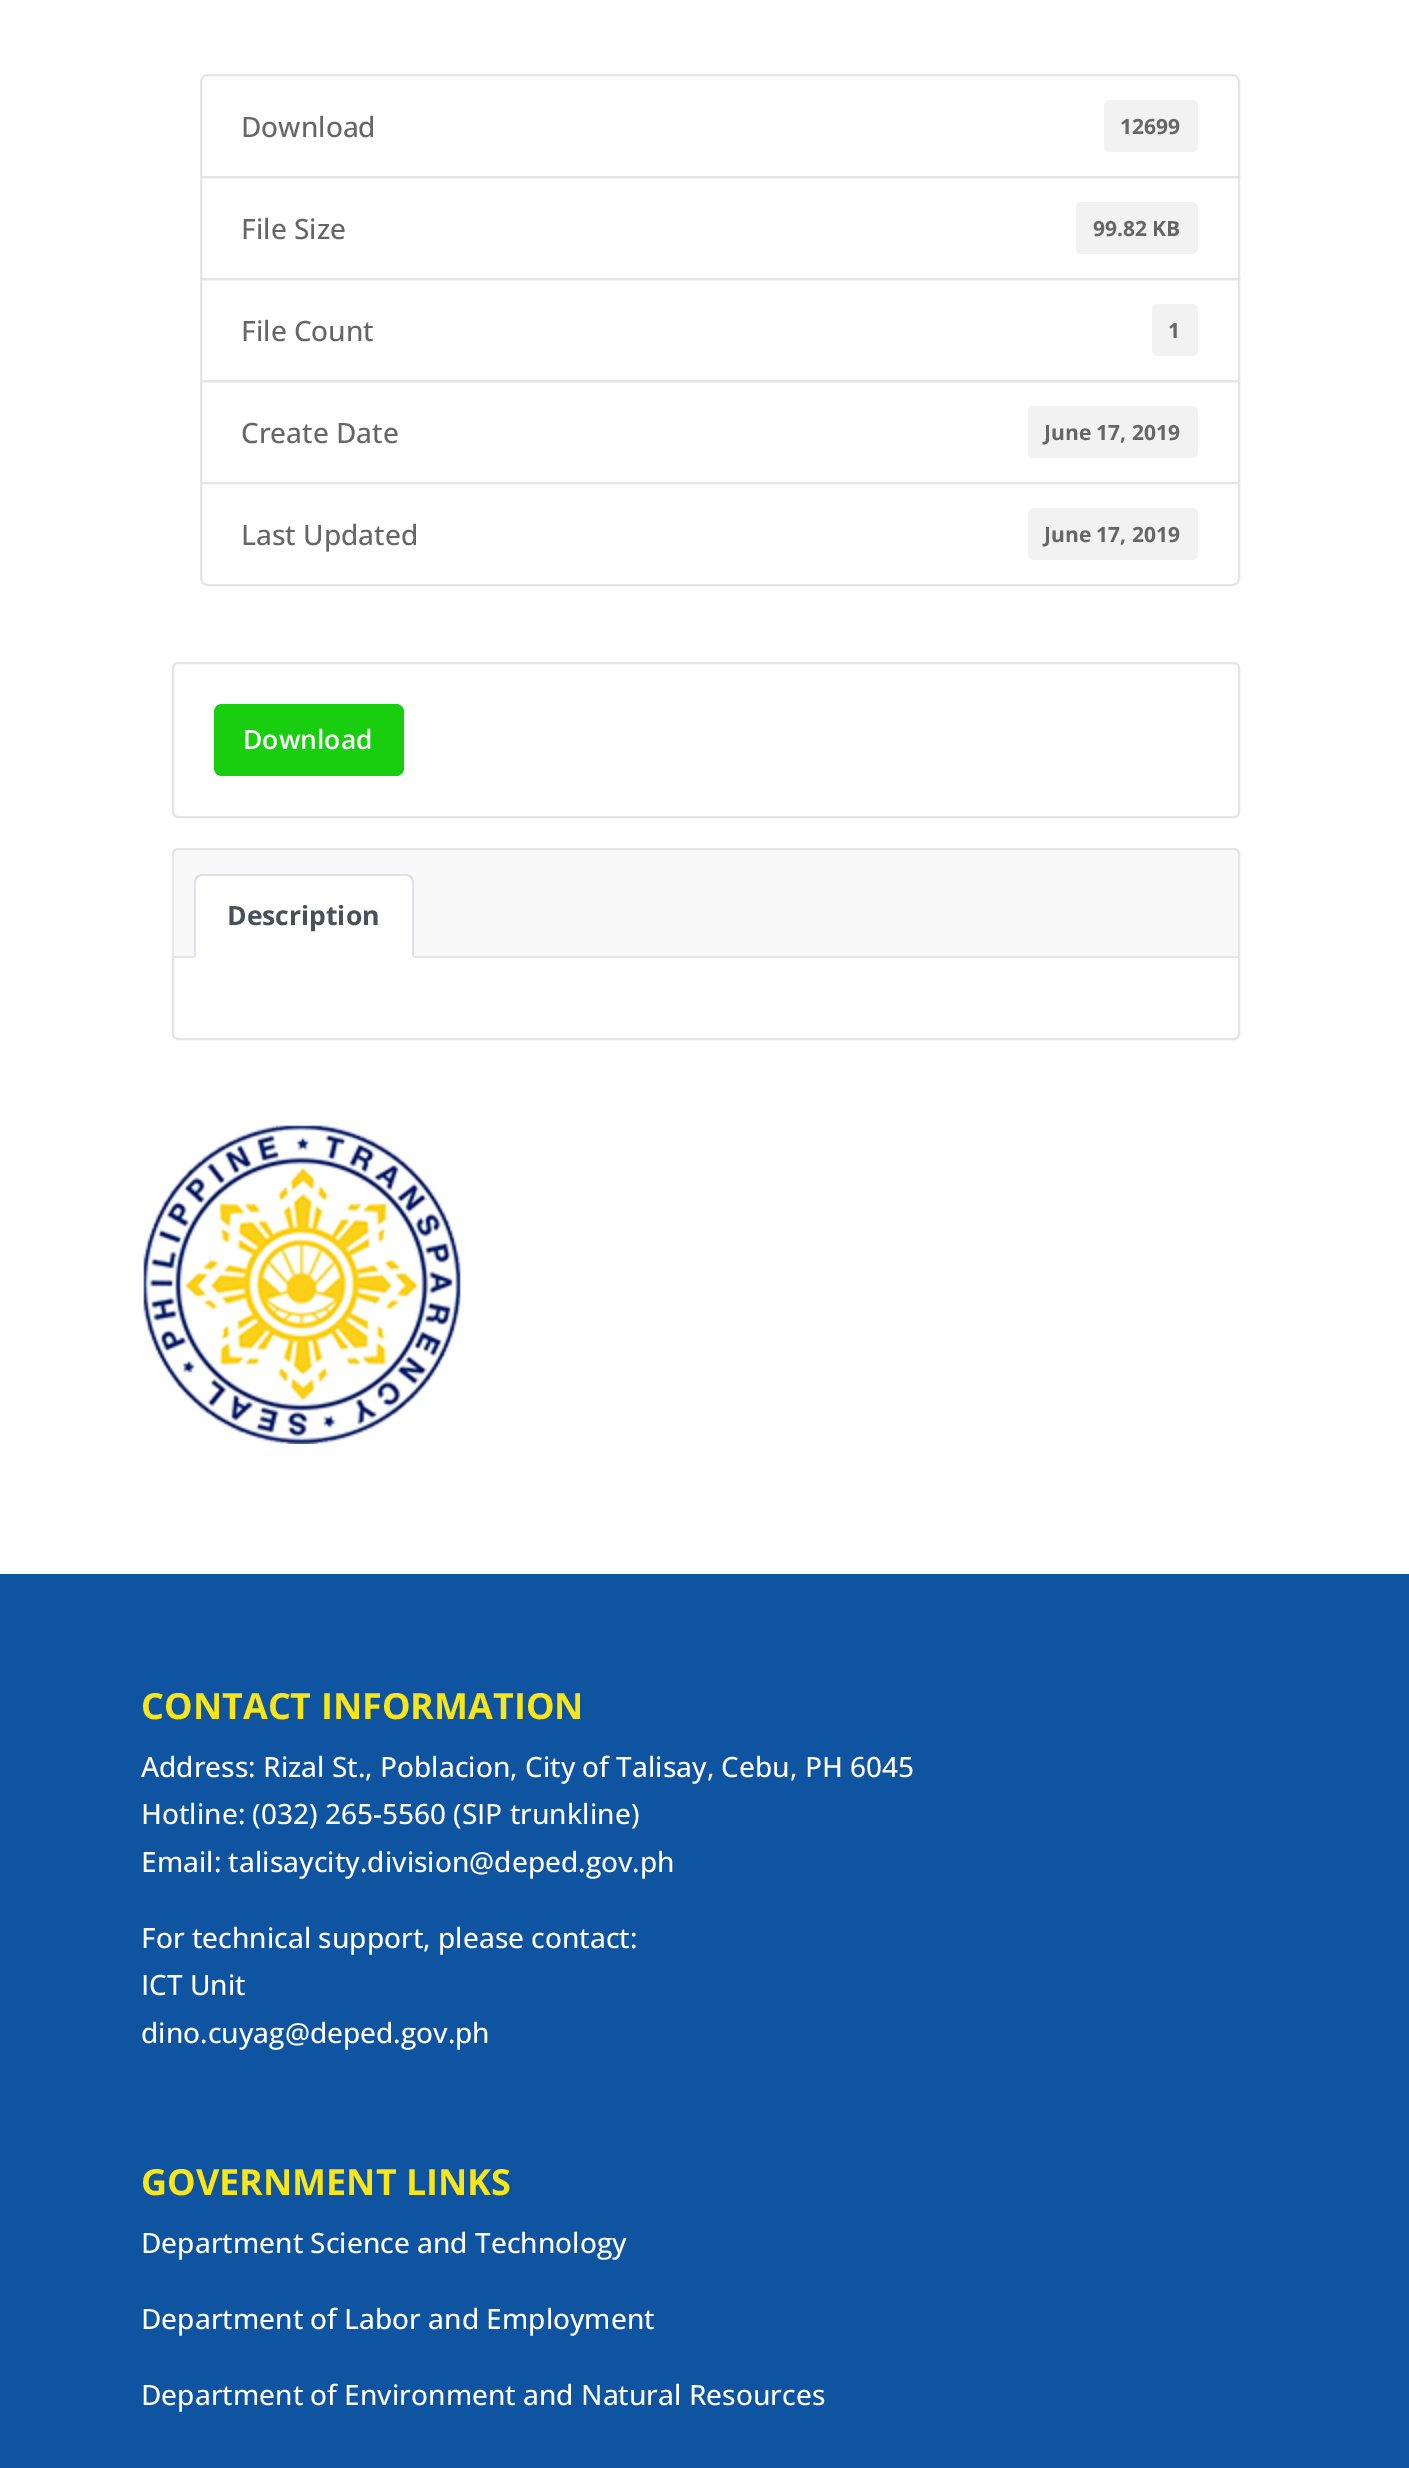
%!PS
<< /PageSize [1409 2468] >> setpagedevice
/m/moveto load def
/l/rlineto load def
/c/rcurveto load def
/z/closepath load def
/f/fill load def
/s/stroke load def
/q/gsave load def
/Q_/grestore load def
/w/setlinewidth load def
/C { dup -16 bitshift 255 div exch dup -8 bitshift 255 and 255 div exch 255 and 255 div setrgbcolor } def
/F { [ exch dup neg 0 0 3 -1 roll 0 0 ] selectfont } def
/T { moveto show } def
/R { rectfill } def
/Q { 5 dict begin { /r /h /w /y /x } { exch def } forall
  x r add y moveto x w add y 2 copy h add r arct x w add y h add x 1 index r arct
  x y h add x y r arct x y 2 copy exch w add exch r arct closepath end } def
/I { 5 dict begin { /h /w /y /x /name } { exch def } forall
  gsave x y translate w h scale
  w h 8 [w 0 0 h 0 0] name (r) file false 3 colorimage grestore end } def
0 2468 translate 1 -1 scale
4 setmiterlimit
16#FFFFFF C
0 0 1409 2468 R
16#E5E5E5 C
2 w
208 75 m 1024 0 l 4 0 7 3 7 7 c 0 95 l -1038 0 l 0 -95 l 0 -4 3 -7 7 -7 c z s
/OpenSans-Medium 28 F
16#666666 C
(Download) 241 137 T
16#F2F2F2 C
1104 100 94 52 6 Q f
/OpenSans-Bold 21 F
16#666666 C
(12699) 1120 134 T
16#E5E5E5 C
201 177 1038 102 rectstroke
/OpenSans-Medium 28 F
16#666666 C
(File Size) 241 239 T
16#F2F2F2 C
1076 202 122 52 6 Q f
/OpenSans-Bold 21 F
16#666666 C
(99.82 KB) 1093 236 T
16#E5E5E5 C
201 279 1038 102 rectstroke
/OpenSans-Medium 28 F
16#666666 C
(File Count) 241 341 T
16#F2F2F2 C
1152 304 46 52 6 Q f
/OpenSans-Bold 21 F
16#666666 C
(1) 1168 338 T
16#E5E5E5 C
201 381 1038 102 rectstroke
/OpenSans-Medium 28 F
16#666666 C
(Create Date) 241 443 T
16#F2F2F2 C
1028 406 170 52 6 Q f
/OpenSans-Bold 21 F
16#666666 C
(June 17, 2019) 1044 440 T
16#FFFFFF C
201 483 m 1038 0 l 0 95 l 0 4 -3 7 -7 7 c -1024 0 l -4 0 -7 -3 -7 -7 c z q f Q_
16#E5E5E5 C
s
/OpenSans-Medium 28 F
16#666666 C
(Last Updated) 241 545 T
16#F2F2F2 C
1028 508 170 52 6 Q f
/OpenSans-Bold 21 F
16#666666 C
(June 17, 2019) 1044 542 T
16#E5E5E5 C
173 663 1066 154 5 Q s
16#18CE0F C
214 704 190 72 8 Q f
/OpenSans-SemiBold 26.5 F
16#FFFFFF C
(Download) 243 749 T
16#E5E5E5 C
173 849 1066 190 5 Q s
16#F8F8F8 C
180 850 m 1052 0 l 3.5 0 6 2.5 6 6 c 0 102 l -1064 0 l 0 -102 l 0 -3.5 2.5 -6 6 -6 c z f
16#E5E5E5 C
174 956 1064 2 R
16#FFFFFF C
202 874 m 204 0 l 4.5 0 8 3.5 8 8 c 0 76 l -220 0 l 0 -76 l 0 -4.5 3.5 -8 8 -8 c z f
16#DEE2E6 C
202 874 m -2 0 -4 1 -6 2 c 2 2 l 1 -1 2 -2 4 -2 c 204 0 l 2 0 3 1 4 2 c 2 -2 l -2 -1 -4 -2 -6 -2 c z f
414 958 m 0 -76 l 0 -2 -1 -4 -2 -6 c -2 2 l 2 3 l 0 75 l z f
16#FFFFFF C
414 958 m -2 -2 l -216 0 l -2 2 l z f
16#DEE2E6 C
194 958 m 2 -2 l 0 -75 l 2 -3 l -2 -2 l -1 2 -2 4 -2 6 c z f
/OpenSans-Bold 26.5 F
16#495057 C
(Description) 227 925 T
(1.rgb) 143 1125 318 319 I
16#0E54A0 C
0 1574 1409 894 R
/OpenSans-Bold 36 F
16#F9E61A C
(CONTACT INFORMATION) 141 1719 T
/OpenSans-Medium 28 F
16#FFFFFF C
(Address: Rizal St., Poblacion, City of Talisay, Cebu, PH 6045) 141 1777 T
(Hotline: \(032\) 265-5560 \(SIP trunkline\)) 141 1824 T
(Email: talisaycity.division@deped.gov.ph) 141 1872 T
(For technical support, please contact:) 141 1948 T
(ICT Unit) 141 1995 T
(dino.cuyag@deped.gov.ph) 141 2043 T
/OpenSans-Bold 36 F
16#F9E61A C
(GOVERNMENT LINKS) 141 2195 T
/OpenSans-Medium 28 F
16#FFFFFF C
(Department Science and Technology) 141 2253 T
(Department of Labor and Employment) 141 2329 T
(Department of Environment and Natural Resources) 141 2405 T
showpage
